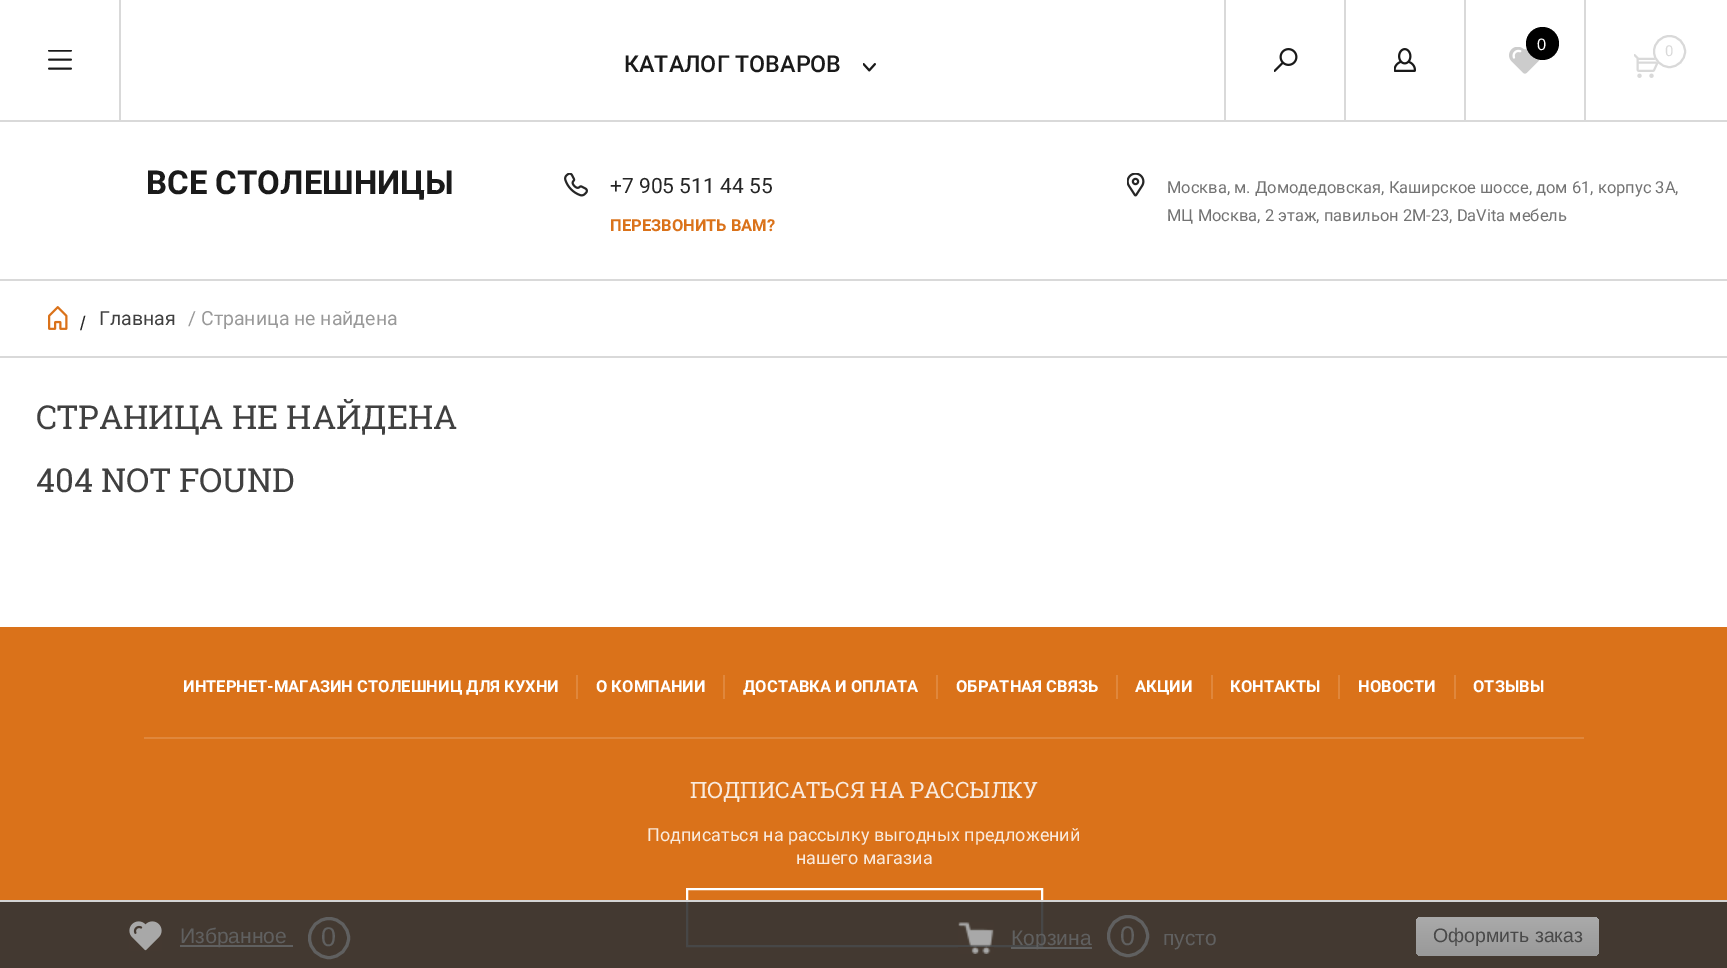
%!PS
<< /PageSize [1727 968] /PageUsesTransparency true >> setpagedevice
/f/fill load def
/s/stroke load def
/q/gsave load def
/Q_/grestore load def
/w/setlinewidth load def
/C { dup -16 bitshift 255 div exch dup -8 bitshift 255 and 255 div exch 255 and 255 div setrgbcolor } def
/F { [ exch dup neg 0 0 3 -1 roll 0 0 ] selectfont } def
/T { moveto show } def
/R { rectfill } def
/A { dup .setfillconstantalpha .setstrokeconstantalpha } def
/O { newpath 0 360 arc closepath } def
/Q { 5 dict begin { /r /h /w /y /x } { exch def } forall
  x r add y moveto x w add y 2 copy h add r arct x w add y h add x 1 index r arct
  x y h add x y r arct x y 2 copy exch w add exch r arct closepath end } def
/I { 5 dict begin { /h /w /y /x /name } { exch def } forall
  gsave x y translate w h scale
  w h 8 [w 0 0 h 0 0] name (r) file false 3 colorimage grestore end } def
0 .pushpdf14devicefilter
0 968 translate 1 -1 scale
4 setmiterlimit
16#FFFFFF C
0 0 1727 968 R
16#D9D9D9 C
0 120 1727 2 R
(1.rgb) 48 50 24 20 I
119 0 2 120 R
1224 0 2 120 R
(2.rgb) 1274 48 24 24 I
(3.rgb) 1394 48 22 24 I
1344 0 2 120 R
1464 0 2 120 R
(4.rgb) 1509 47 31 27 I
16#000000 C
1542.5 43.5 16.5 O f
/LiberationSans-Regular 16.5 F
16#FFFFFF C
(0) 1537 50 T
(5.rgb) 1634 54 25 24 I
16#D9D9D9 C
1584 0 2 120 R
16#FFFFFF C
1669.5 51.5 16.5 O f
0.15 A
16#000000 C
2 w
1669.5 51.5 15.5 O s
/Roboto-Regular 15 F
1 A
16#D9D9D9 C
(0) 1665 56 T
/Roboto-Medium 23.25 F
16#1A1A1A C
(КАТАЛОГ ТОВАРОВ) 624 72 T
(6.rgb) 863 63 13 9 I
/Roboto-Bold 33 F
(ВСЕ СТОЛЕШНИЦЫ) 146 194 T
(7.rgb) 564 173 24 24 I
/Roboto-Regular 21 F
16#262626 C
(+7 905 511 44 55) 610 193 T
/Roboto-Bold 16.5 F
16#DA721A C
(ПЕРЕЗВОНИТЬ ВАМ?) 610 231 T
(8.rgb) 1127 173 18 24 I
/Roboto-Regular 16.5 F
16#737373 C
(Москва, м. Домодедовская, Каширское шоссе, дом 61, корпус 3А,) 1167 193 T
(МЦ Москва, 2 этаж, павильон 2М-23, DaVita мебель) 1167 221 T
16#D9D9D9 C
0 279 1727 2 R
0 356 1727 2 R
(9.rgb) 48 306 20 24 I
/LiberationSans-Regular 19.5 F
16#262626 C
(/) 80 330 T
/Roboto-Regular 19.5 F
16#404040 C
(Главная) 99 325 T
16#999999 C
(/ Страница не найдена) 188 325 T
/RobotoSlab-Regular 33 F
16#404040 C
(СТРАНИЦА НЕ НАЙДЕНА) 36 429 T
(404 NOT FOUND) 36 492 T
16#DA721A C
0 627 1727 341 R
16#E0873C C
144 737 1440 2 R
/Roboto-Bold 16.5 F
16#FFFFFF C
(ИНТЕРНЕТ-МАГАЗИН СТОЛЕШНИЦ ДЛЯ КУХНИ) 183 692 T
16#E0873C C
576 675 2 24 R
16#FFFFFF C
(О КОМПАНИИ) 596 692 T
16#E0873C C
723 675 2 24 R
16#FFFFFF C
(ДОСТАВКА И ОПЛАТА) 743 692 T
16#E0873C C
936 675 2 24 R
16#FFFFFF C
(ОБРАТНАЯ СВЯЗЬ) 956 692 T
16#E0873C C
1116 675 2 24 R
16#FFFFFF C
(АКЦИИ) 1135 692 T
16#E0873C C
1211 675 2 24 R
16#FFFFFF C
(КОНТАКТЫ) 1230 692 T
16#E0873C C
1338 675 2 24 R
16#FFFFFF C
(НОВОСТИ) 1358 692 T
16#E0873C C
1454 675 2 24 R
16#FFFFFF C
(ОТЗЫВЫ) 1473 692 T
/RobotoSlab-Regular 22.5 F
16#F9EADD C
(ПОДПИСАТЬСЯ НА РАССЫЛКУ) 690 798 T
/Roboto-Regular 18 F
(Подписаться на рассылку выгодных предложений) 647 841 T
(нашего магазиа) 796 864 T
16#FFFFFF C
687 889 355 57 rectstroke
0.9 A
16#333333 C
0 902 1727 66 R
1 A
16#D4D4D4 C
0 900 1727 2 R
(10.rgb) 129 921 33 30 I
16#606060 C
180 945 113 2 R
/LiberationSans-Regular 21 F
(Избранное) 180 943 T
3 w
329 938 19.5 O s
/LiberationSans-Regular 27 F
(0) 321 946 T
(11.rgb) 958 922 36 32 I
1011 947 81 2 R
/LiberationSans-Regular 21 F
(Корзина) 1011 945 T
1128 936 19.5 O s
/LiberationSans-Regular 27 F
(0) 1120 945 T
/LiberationSans-Regular 21 F
(пусто) 1163 945 T
q 1416 917 183 39 6 Q clip newpath
<< /ShadingType 2 /ColorSpace /DeviceRGB /Coords [1508 917 1508 956] /Extend [true true] /Function << /FunctionType 2 /Domain [0 1] /C0 [.667 .667 .667] /C1 [.6 .6 .6] /N 1 >> >> shfill Q_
/LiberationSans-Regular 19.5 F
16#494949 C
(Оформить заказ) 1433 942 T
.poppdf14devicefilter showpage
